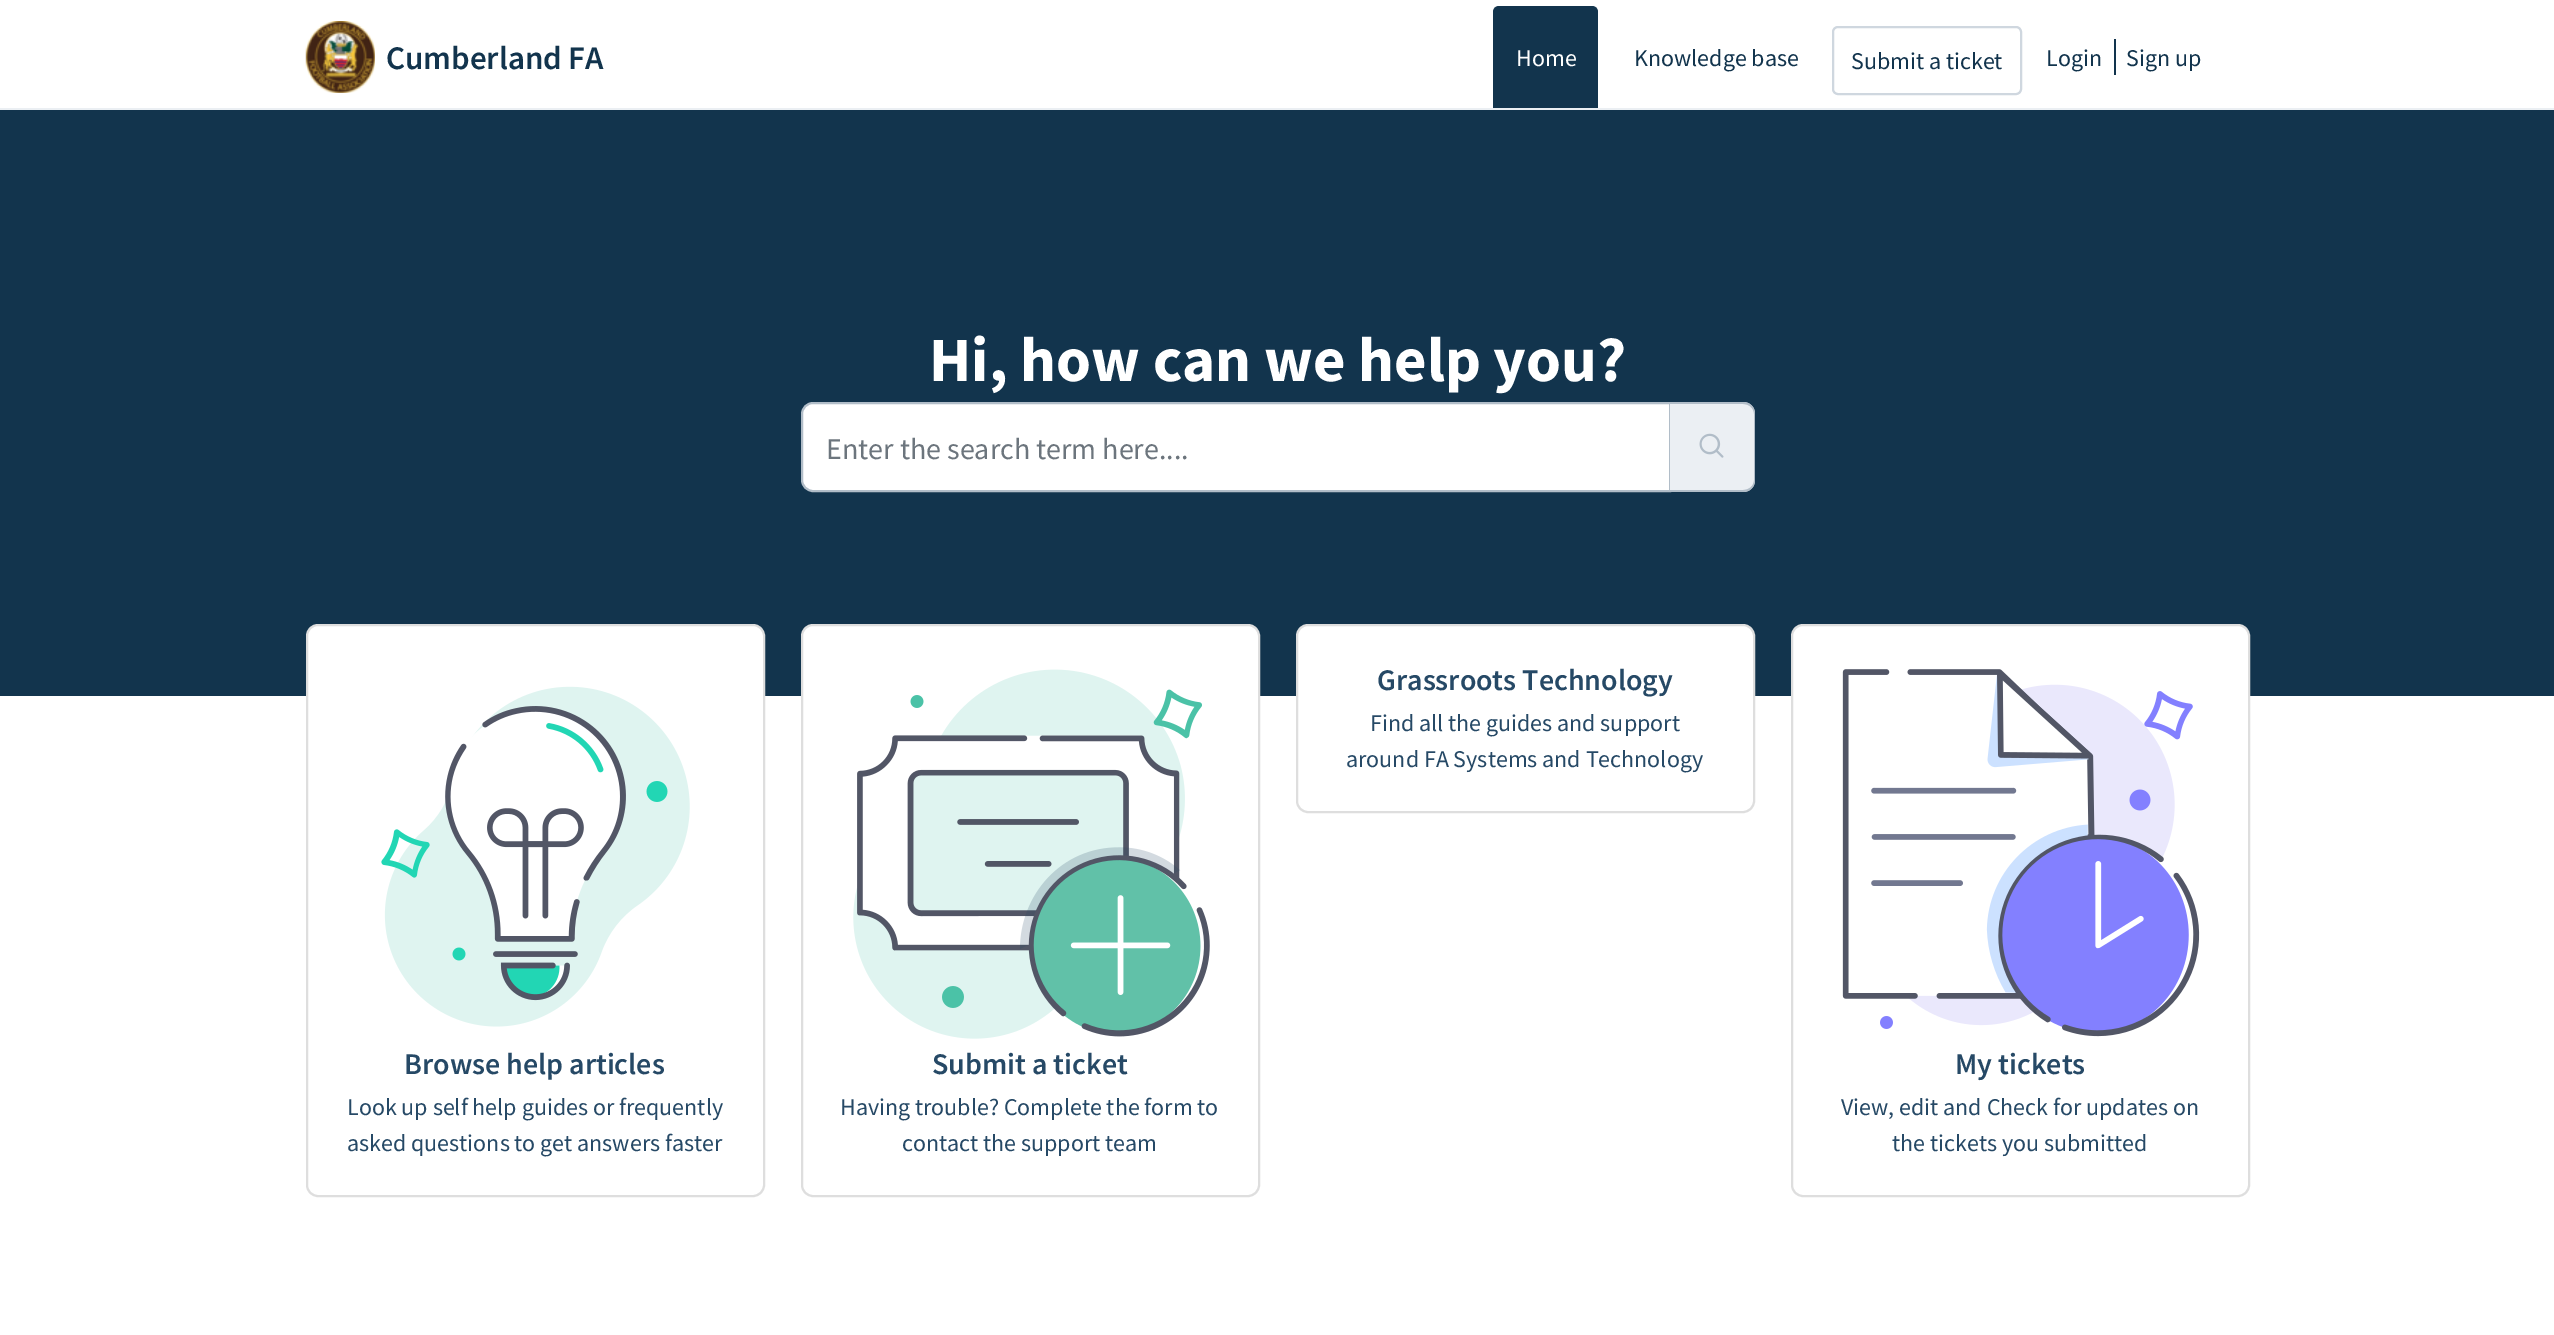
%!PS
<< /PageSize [2554 1335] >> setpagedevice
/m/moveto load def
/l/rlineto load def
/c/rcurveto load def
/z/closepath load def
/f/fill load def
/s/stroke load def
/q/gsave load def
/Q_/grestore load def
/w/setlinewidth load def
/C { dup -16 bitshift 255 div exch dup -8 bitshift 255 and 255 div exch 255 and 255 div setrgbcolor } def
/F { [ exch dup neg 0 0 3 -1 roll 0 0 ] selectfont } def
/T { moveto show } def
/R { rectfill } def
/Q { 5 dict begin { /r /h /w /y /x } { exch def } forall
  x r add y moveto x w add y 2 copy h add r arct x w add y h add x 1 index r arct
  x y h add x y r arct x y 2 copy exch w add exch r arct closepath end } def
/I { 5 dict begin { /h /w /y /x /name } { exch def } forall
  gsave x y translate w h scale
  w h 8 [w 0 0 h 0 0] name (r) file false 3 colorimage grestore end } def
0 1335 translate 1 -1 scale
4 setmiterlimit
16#FFFFFF C
0 0 2554 1335 R
16#EBEFF3 C
0 108 2554 2 R
(1.rgb) 305 21 70 72 I
/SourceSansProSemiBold-SemiBold 33 F
16#12344D C
(Cumberland FA) 386 69 T
1499 6 m 93 0 l 3.5 0 6 2.5 6 6 c 0 96 l -105 0 l 0 -96 l 0 -3.5 2.5 -6 6 -6 c z f
/SourceSansPro-Regular 24 F
16#FFFFFF C
(Home) 1516 66 T
16#12344D C
(Knowledge base) 1634 66 T
16#CFD7DF C
2 w
1833 27 188 67 5 Q s
16#12344D C
(Submit a ticket) 1851 69 T
(Login) 2046 66 T
2114 39 2 36 R
(Sign up) 2126 66 T
0 110 2554 586 R
/SourceSansPro-Bold 63 F
16#FFFFFF C
(Hi, how can we help you?) 929 381 T
813 403 m 857 0 l 0 88 l -857 0 l -6 0 -11 -5 -11 -11 c 0 -66 l 0 -6 5 -11 11 -11 c z q f Q_
16#B1BDC8 C
s
/SourceSansPro-Regular 30 F
16#6C757D C
(Enter the search term here....) 826 459 T
16#EBEFF3 C
1670 402 m 73 0 l 6.5 0 12 5.5 12 12 c 0 66 l 0 6.5 -5.5 12 -12 12 c -73 0 l z f
16#B1BDC8 C
1670 402 m 73 0 l 7 0 12 5 12 12 c 0 66 l 0 7 -5 12 -12 12 c -73 0 l z 1670 404 m 73 0 l 6 0 11 4 11 10 c 0 66 l 0 6 -5 10 -11 10 c -73 0 l z eofill
(2.rgb) 1699 433 25 25 I
16#FFFFFF C
1297 625 457 187 11 Q q f Q_
16#DEDEDE C
s
/SourceSansProSemiBold-SemiBold 30 F
16#264966 C
(Grassroots Technology) 1377 690 T
/SourceSansPro-Regular 24 F
(Find all the guides and support) 1370 731 T
(around FA Systems and Technology) 1346 767 T
16#FFFFFF C
307 625 457 571 11 Q q f Q_
16#DEDEDE C
s
(3.rgb) 381 686 309 341 I
/SourceSansProSemiBold-SemiBold 30 F
16#264966 C
(Browse help articles) 404 1074 T
/SourceSansPro-Regular 24 F
(Look up self help guides or frequently) 347 1115 T
(asked questions to get answers faster) 347 1151 T
16#FFFFFF C
802 625 457 571 11 Q q f Q_
16#DEDEDE C
s
(4.rgb) 853 669 357 370 I
/SourceSansProSemiBold-SemiBold 30 F
16#264966 C
(Submit a ticket) 932 1074 T
/SourceSansPro-Regular 24 F
(Having trouble? Complete the form to) 840 1115 T
(contact the support team) 902 1151 T
16#FFFFFF C
1792 625 457 571 11 Q q f Q_
16#DEDEDE C
s
(5.rgb) 1842 669 358 368 I
/SourceSansProSemiBold-SemiBold 30 F
16#264966 C
(My tickets) 1955 1074 T
/SourceSansPro-Regular 24 F
(View, edit and Check for updates on) 1841 1115 T
(the tickets you submitted) 1892 1151 T
showpage
